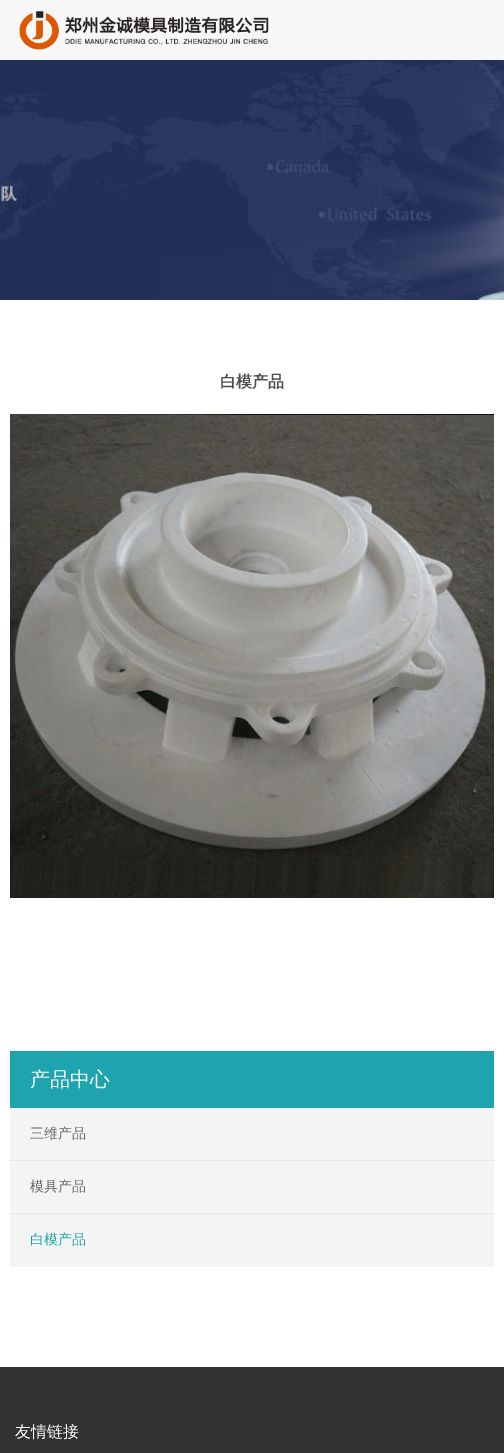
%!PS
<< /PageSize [504 1453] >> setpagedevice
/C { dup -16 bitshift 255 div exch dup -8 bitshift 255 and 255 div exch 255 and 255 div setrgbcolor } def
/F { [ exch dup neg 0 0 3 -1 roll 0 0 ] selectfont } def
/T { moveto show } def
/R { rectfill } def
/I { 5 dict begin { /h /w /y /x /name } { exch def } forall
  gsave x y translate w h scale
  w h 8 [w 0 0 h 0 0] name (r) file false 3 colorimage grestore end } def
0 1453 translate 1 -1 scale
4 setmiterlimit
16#FFFFFF C
0 0 504 1453 R
16#F7F7F7 C
0 0 504 60 R
(1.rgb) 19 11 250 39 I
(2.rgb) 0 60 504 240 I
/WenQuanYiZenHei-Bold 16 F
16#4D4D4D C
(白模产品) 220 387 T
(3.rgb) 10 414 484 484 I
16#F4F4F4 C
10 1108 484 159 R
16#1DA4AE C
10 1051 484 57 R
/WenQuanYiZenHei-Medium 20 F
16#FFFFFF C
(产品中心) 30 1086 T
16#E5E5E5 C
10 1160 484 1 R
/WenQuanYiZenHei-Medium 14 F
16#666666 C
(三维产品) 30 1138 T
16#E5E5E5 C
10 1213 484 1 R
16#666666 C
(模具产品) 30 1191 T
16#1DA4AE C
(白模产品) 30 1244 T
16#323232 C
0 1367 504 86 R
/WenQuanYiZenHei-Medium 16 F
16#FFFFFF C
(友情链接) 15 1437 T
showpage
